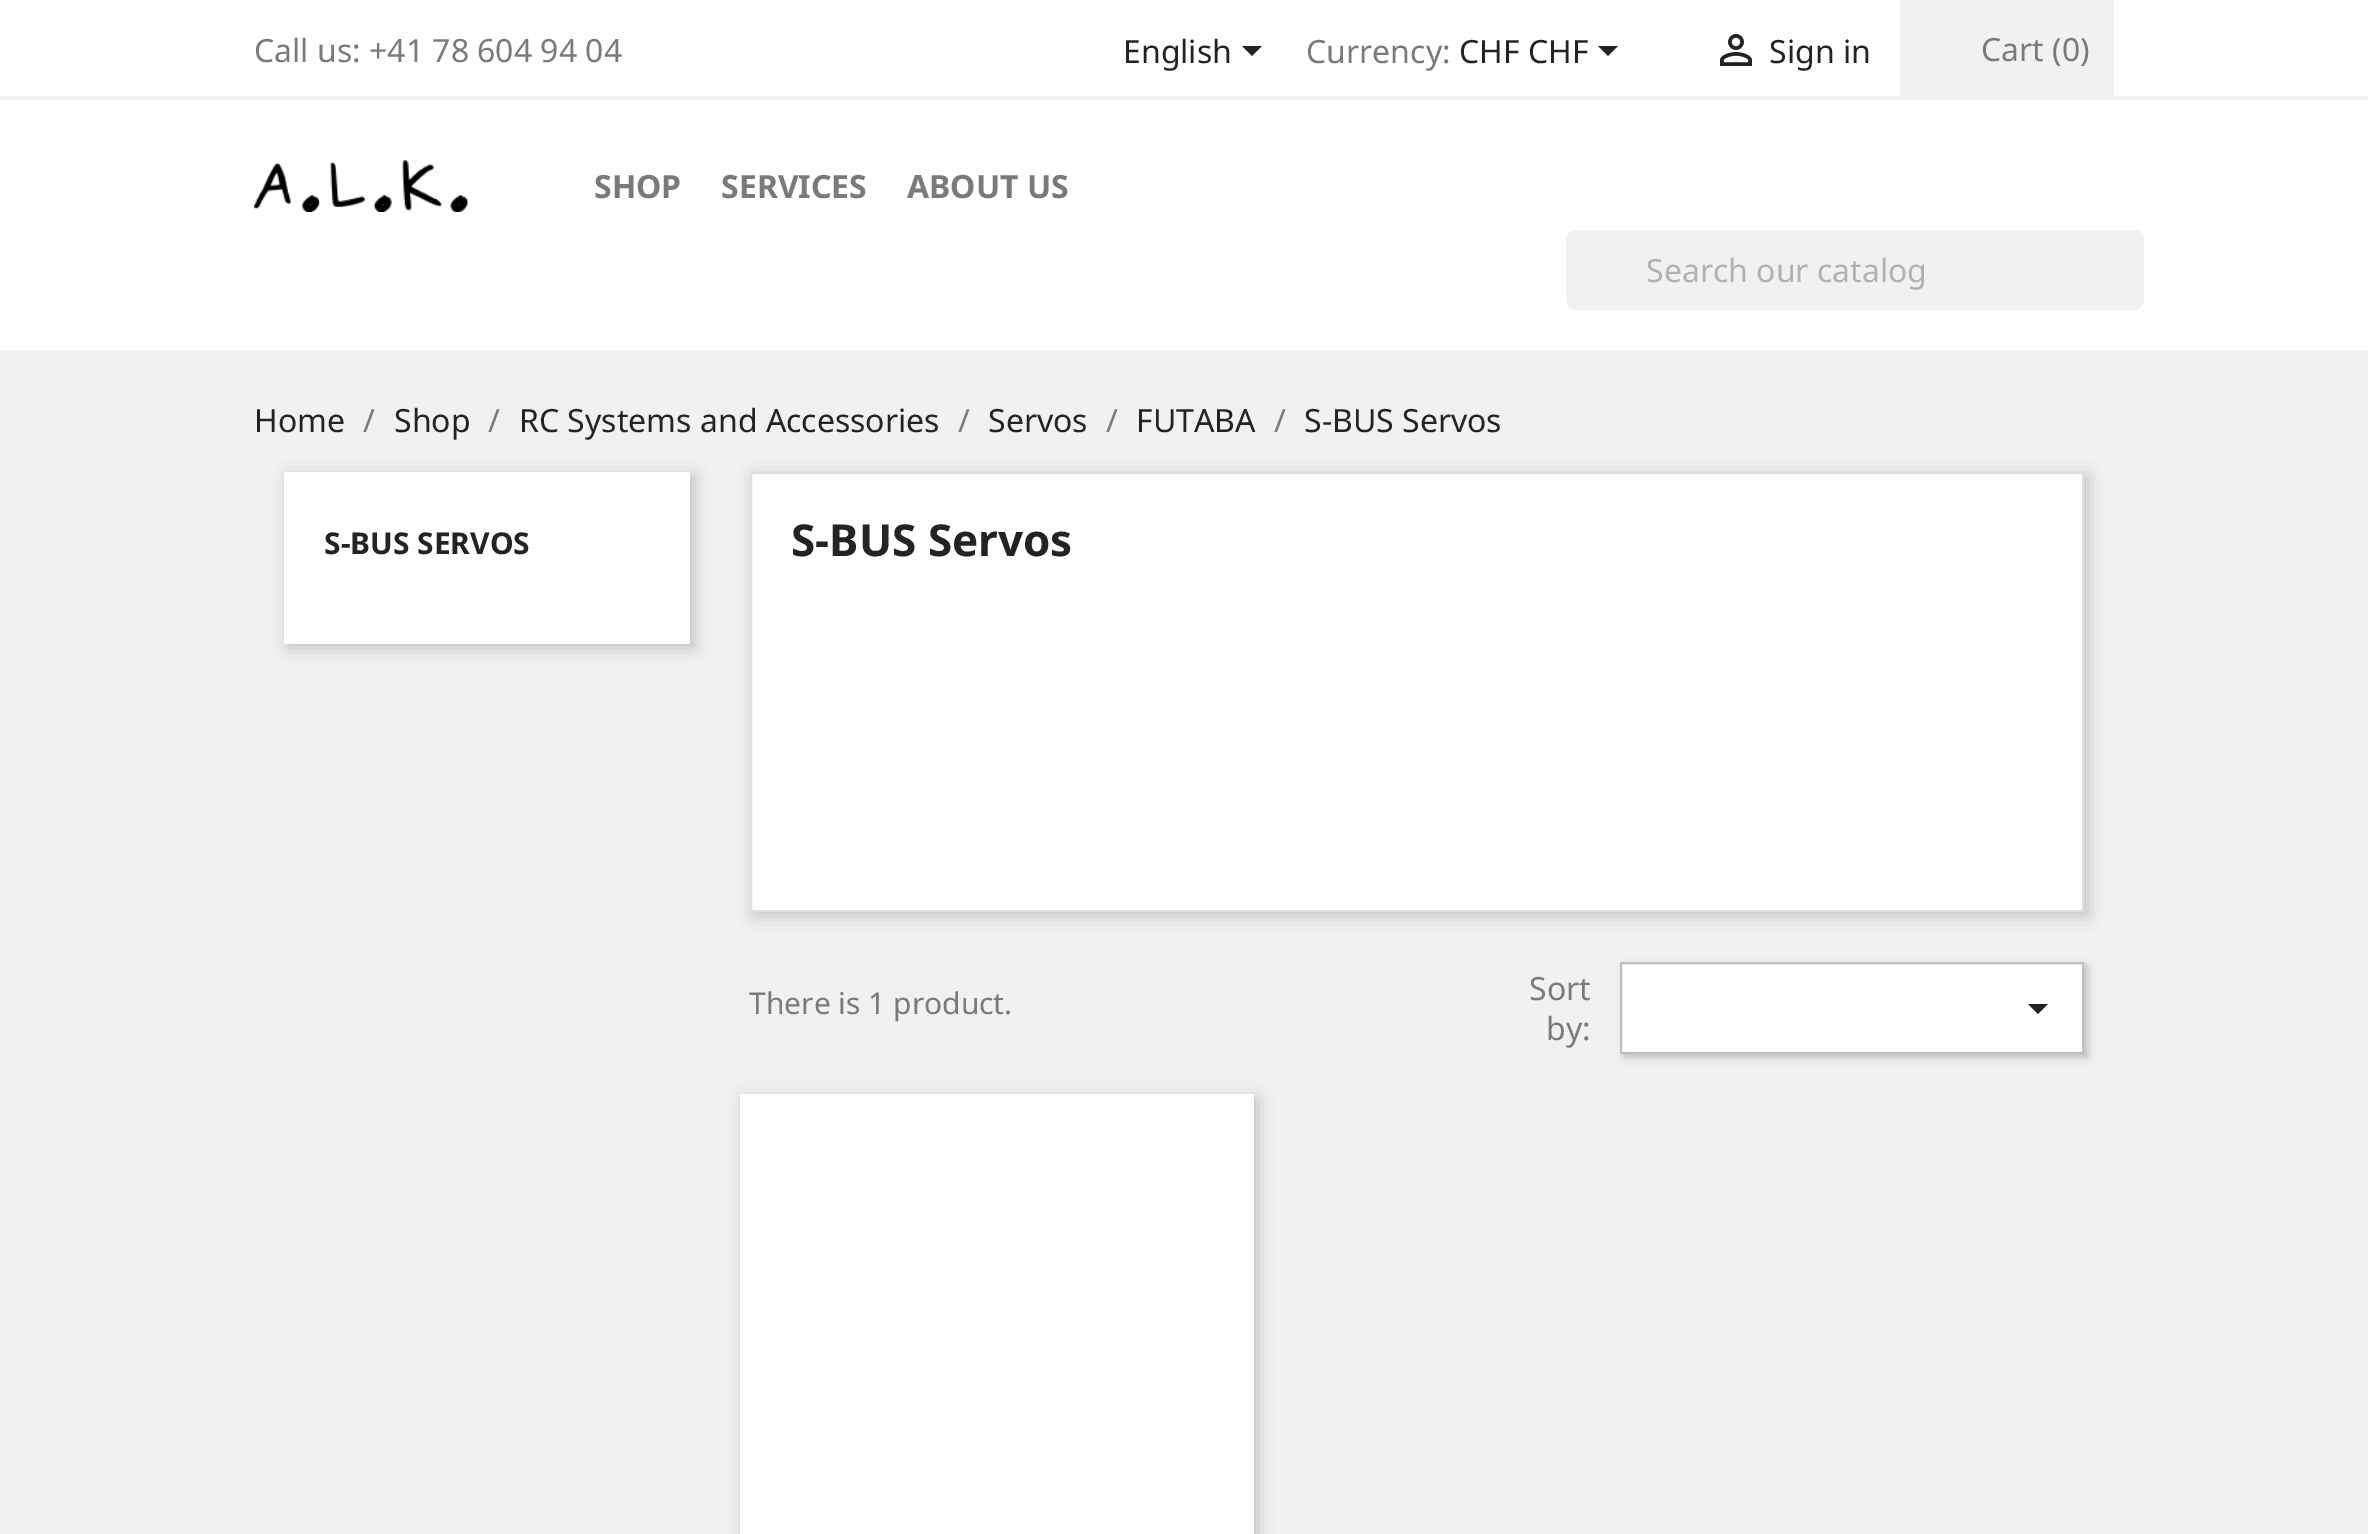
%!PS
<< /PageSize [2368 1534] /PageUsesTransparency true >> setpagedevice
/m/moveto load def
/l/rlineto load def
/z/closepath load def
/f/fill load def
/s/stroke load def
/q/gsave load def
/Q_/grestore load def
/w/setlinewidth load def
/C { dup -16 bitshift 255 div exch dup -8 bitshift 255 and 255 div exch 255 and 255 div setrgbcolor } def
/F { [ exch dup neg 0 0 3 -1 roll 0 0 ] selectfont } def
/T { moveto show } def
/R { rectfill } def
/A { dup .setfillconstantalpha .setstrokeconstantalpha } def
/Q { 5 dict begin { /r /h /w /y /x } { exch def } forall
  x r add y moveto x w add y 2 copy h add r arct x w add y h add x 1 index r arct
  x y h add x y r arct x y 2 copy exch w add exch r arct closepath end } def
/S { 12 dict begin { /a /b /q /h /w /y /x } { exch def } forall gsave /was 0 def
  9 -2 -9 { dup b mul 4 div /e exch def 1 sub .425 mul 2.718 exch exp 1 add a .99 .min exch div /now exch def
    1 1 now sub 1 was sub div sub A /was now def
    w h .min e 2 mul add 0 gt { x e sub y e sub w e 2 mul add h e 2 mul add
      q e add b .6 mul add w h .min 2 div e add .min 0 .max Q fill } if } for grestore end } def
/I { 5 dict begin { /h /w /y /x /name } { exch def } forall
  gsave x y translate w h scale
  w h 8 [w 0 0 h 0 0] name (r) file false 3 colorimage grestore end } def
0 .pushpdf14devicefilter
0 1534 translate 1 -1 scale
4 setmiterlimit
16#FFFFFF C
0 0 2368 1534 R
16#F1F1F1 C
0 96 2368 4 R
/NotoSans-Regular 32 F
16#7A7A7A C
(Call us: +41 78 604 94 04) 254 62 T
16#232323 C
(English) 1123 63 T
1242 46 m 20 0 l -10 10 l z f
16#7A7A7A C
(Currency:) 1306 63 T
16#232323 C
(CHF CHF) 1459 63 T
1598 46 m 20 0 l -10 10 l z f
(1.rgb) 1719 34 34 32 I
(Sign in) 1769 63 T
16#F1F1F1 C
1900 0 214 96 R
16#7A7A7A C
(Cart \(0\)) 1981 61 T
(2.rgb) 254 160 215 52 I
/NotoSans-Bold 32 F
(SHOP) 594 198 T
(SERVICES) 721 198 T
(ABOUT US) 907 198 T
16#F1F1F1 C
1566 230 578 80 10 Q f
/NotoSans-Regular 32 F
16#B1B1B1 C
(Search our catalog) 1646 282 T
16#F1F1F1 C
0 350 2368 1184 R
16#232323 C
(Home) 254 432 T
16#7A7A7A C
(/) 363 432 T
16#232323 C
(Shop) 394 432 T
16#7A7A7A C
(/) 488 432 T
16#232323 C
(RC Systems and Accessories) 519 432 T
16#7A7A7A C
(/) 958 432 T
16#232323 C
(Servos) 988 432 T
16#7A7A7A C
(/) 1106 432 T
16#232323 C
(FUTABA) 1136 432 T
16#7A7A7A C
(/) 1274 432 T
16#232323 C
(S-BUS Servos) 1304 432 T
16#000000 C
288 476 406 172 0 8 .2 S
16#FFFFFF C
284 472 406 172 R
/NotoSans-Bold 30 F
16#232323 C
(S-BUS SERVOS) 324 554 T
16#000000 C
754 476 1334 440 0 8 .2 S
16#FFFFFF C
751 473 m 1332 0 l 0 438 l -1332 0 l z q f Q_
16#DFDFDF C
2 w
s
/NotoSans-Bold 44 F
16#232323 C
(S-BUS Servos) 791 556 T
/NotoSans-Regular 30 F
16#7A7A7A C
(There is 1 product.) 749 1014 T
/NotoSans-Regular 32 F
(Sort) 1529 1000 T
(by:) 1546 1040 T
16#000000 C
1624 966 464 92 0 4 .2 S
16#FFFFFF C
1621 963 m 462 0 l 0 90 l -462 0 l z q f Q_
16#BFBFBF C
s
16#232323 C
2028 1004 m 20 0 l -10 10 l z f
16#000000 C
744 1098 514 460 0 8 .2 S
16#FFFFFF C
740 1094 514 440 R
.poppdf14devicefilter showpage
